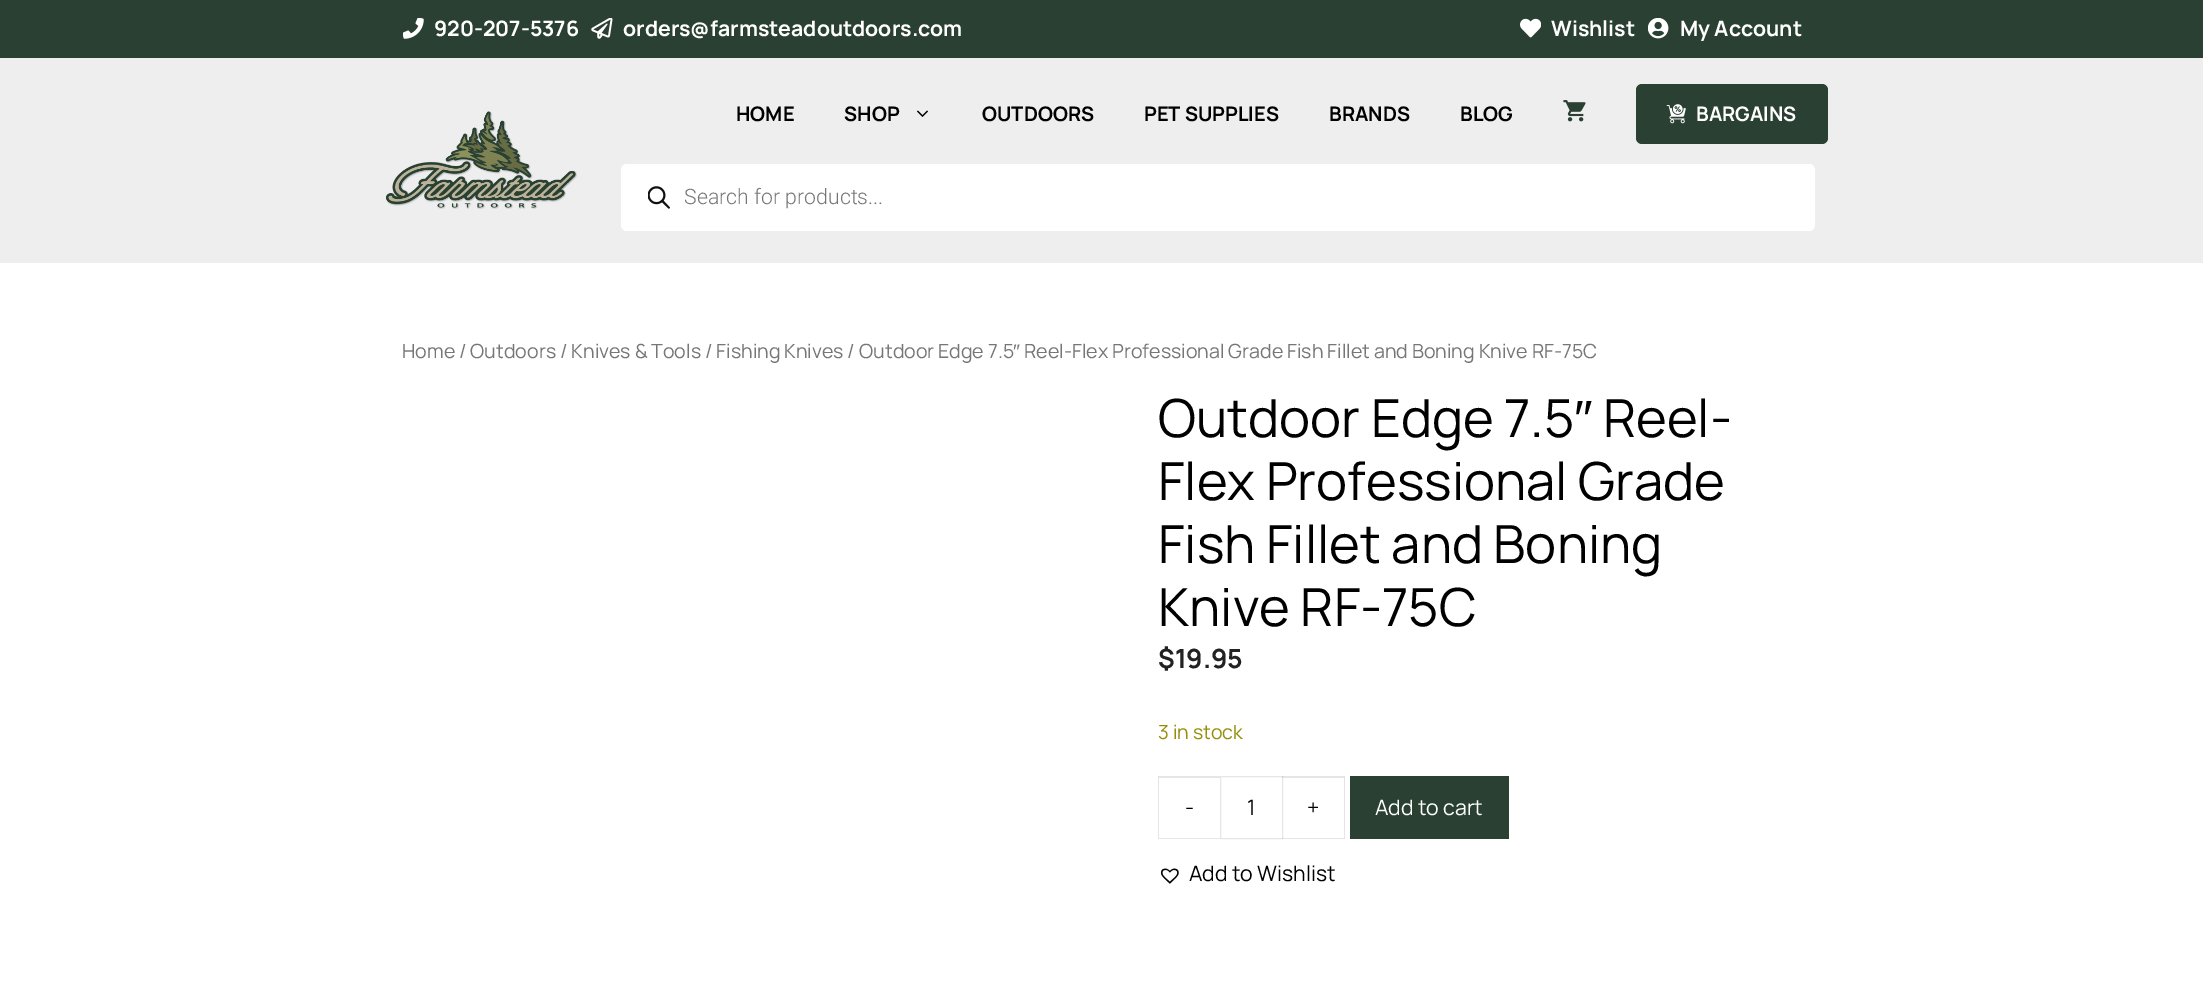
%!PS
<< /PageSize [2203 991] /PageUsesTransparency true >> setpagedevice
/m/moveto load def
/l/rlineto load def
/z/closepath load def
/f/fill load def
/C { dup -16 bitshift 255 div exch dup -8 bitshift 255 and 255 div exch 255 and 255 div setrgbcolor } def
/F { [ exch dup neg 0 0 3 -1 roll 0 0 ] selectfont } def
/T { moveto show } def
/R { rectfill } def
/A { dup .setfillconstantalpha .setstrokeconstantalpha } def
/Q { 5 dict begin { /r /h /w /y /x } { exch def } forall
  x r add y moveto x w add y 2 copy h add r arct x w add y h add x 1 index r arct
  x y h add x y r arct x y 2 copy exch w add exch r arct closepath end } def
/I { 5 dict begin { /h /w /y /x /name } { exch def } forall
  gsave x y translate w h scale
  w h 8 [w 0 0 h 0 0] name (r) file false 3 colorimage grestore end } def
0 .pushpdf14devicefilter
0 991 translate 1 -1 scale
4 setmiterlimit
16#FFFFFF C
0 0 2203 991 R
16#2A4032 C
0 0 2203 58 R
(1.rgb) 403 18 21 21 I
/Manrope-Bold 21.25 F
16#FFFFFF C
(920-207-5376) 434 36 T
(2.rgb) 591 18 22 21 I
(orders@farmsteadoutdoors.com) 623 36 T
(3.rgb) 1520 18 21 20 I
(Wishlist) 1551 36 T
(4.rgb) 1648 18 21 21 I
(My Account) 1680 36 T
16#EEEEEE C
0 58 2203 205 R
(5.rgb) 386 111 191 98 I
/Manrope-Bold 20 F
16#000000 C
(HOME) 736 121 T
(SHOP) 844 121 T
(6.rgb) 917 110 11 7 I
(OUTDOORS) 982 121 T
(PET SUPPLIES) 1144 121 T
(BRANDS) 1329 121 T
(BLOG) 1460 121 T
(7.rgb) 1563 100 23 22 I
16#2A4032 C
1636 84 192 60 6 Q f
(8.rgb) 1666 104 20 20 I
16#FFFFFF C
(BARGAINS) 1696 121 T
621 164 1194 67 6 Q f
(9.rgb) 648 186 22 23 I
/Roboto-Light 21.25 F
16#767676 C
(Search for products...) 684 204 T
/Manrope-Regular 19.55 F
(Home / Outdoors / Knives & Tools / Fishing Knives / Outdoor Edge 7.5) 402 358 T
/LiberationSans-Regular 19.55 F
(″) 1013 358 T
/Manrope-Regular 19.55 F
(Reel-Flex Professional Grade Fish Fillet and Boning Knive RF-75C) 1024 358 T
/Manrope-Regular 52.5 F
16#000000 C
(Outdoor Edge 7.5) 1158 437 T
/LiberationSans-Regular 52.5 F
(″) 1574 437 T
/Manrope-Regular 52.5 F
(Reel-) 1603 437 T
(Flex Professional Grade) 1158 500 T
(Fish Fillet and Boning) 1158 563 T
(Knive RF-75C) 1158 626 T
/Manrope-Bold 26.5 F
16#222222 C
($19.95) 1158 668 T
/Manrope-Regular 19.55 F
16#958E09 C
(3 in stock) 1158 739 T
16#E6E6E6 C
1158 776 m 62 0 l 0 2 l -61 0 l z 1220 839 m -62 0 l 1 -1 l 61 0 l z f
0.1 A
16#000000 C
1158 839 m 0 -63 l 1 2 l 0 60 l z f
/Manrope-Regular 21.25 F
1 A
(-) 1185 815 T
16#E6E6E6 C
1220.5 776.5 62 62 rectstroke
16#000000 C
(1) 1247 815 T
0.1 A
1282 776 m 63 0 l -1 2 l -62 0 l z f
1345 776 m 0 63 l -1 -1 l 0 -60 l z f
1345 839 m -63 0 l 0 -1 l 62 0 l z f
1 A
(+) 1307 815 T
16#2A4032 C
1350 776 159 63 R
16#FFFFFF C
(Add to cart) 1375 815 T
(10.rgb) 1160 868 19 16 I
16#000000 C
(Add to Wishlist) 1189 881 T
.poppdf14devicefilter showpage
